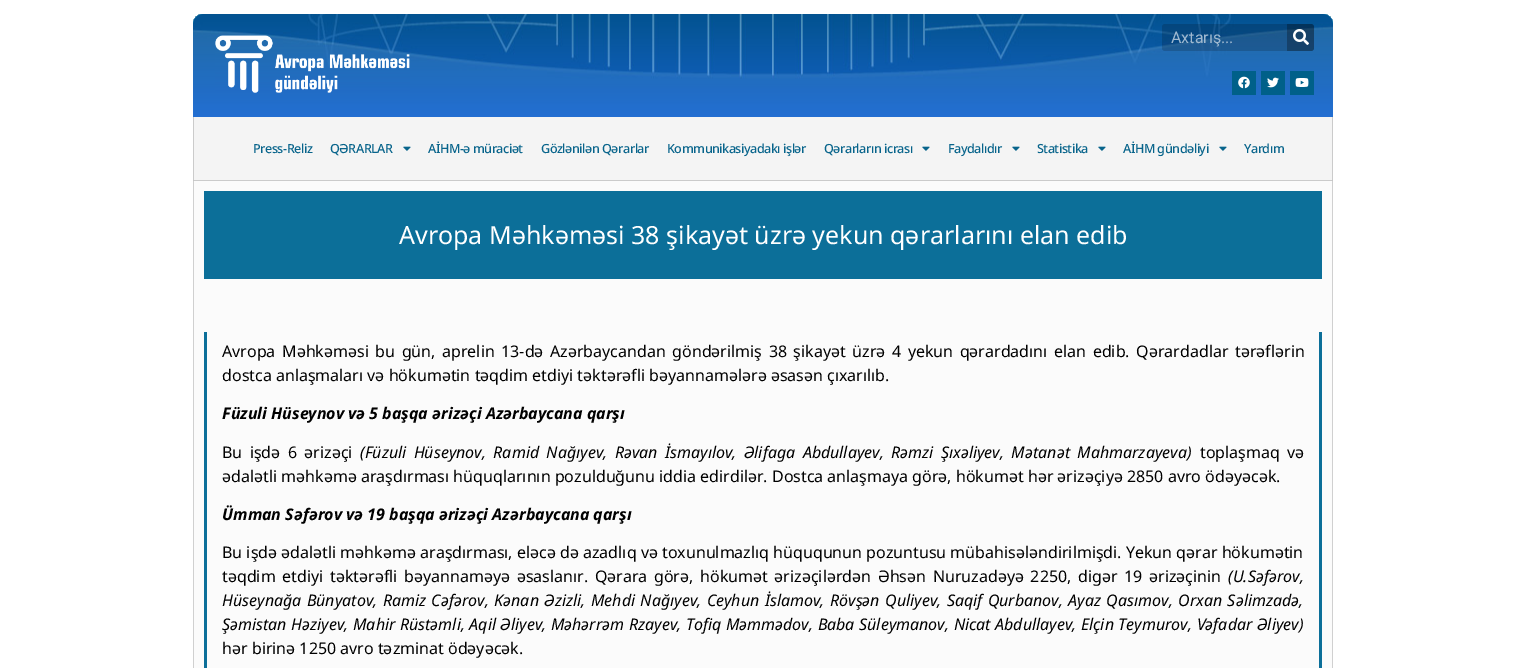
%!PS
<< /PageSize [1526 668] /PageUsesTransparency true >> setpagedevice
/m/moveto load def
/l/rlineto load def
/c/rcurveto load def
/z/closepath load def
/f/fill load def
/q/gsave load def
/Q_/grestore load def
/C { dup -16 bitshift 255 div exch dup -8 bitshift 255 and 255 div exch 255 and 255 div setrgbcolor } def
/F { [ exch dup neg 0 0 3 -1 roll 0 0 ] selectfont } def
/T { moveto show } def
/R { rectfill } def
/A { dup .setfillconstantalpha .setstrokeconstantalpha } def
/Q { 5 dict begin { /r /h /w /y /x } { exch def } forall
  x r add y moveto x w add y 2 copy h add r arct x w add y h add x 1 index r arct
  x y h add x y r arct x y 2 copy exch w add exch r arct closepath end } def
/I { 5 dict begin { /h /w /y /x /name } { exch def } forall
  gsave x y translate w h scale
  w h 8 [w 0 0 h 0 0] name (r) file false 3 colorimage grestore end } def
0 .pushpdf14devicefilter
0 668 translate 1 -1 scale
4 setmiterlimit
16#FFFFFF C
0 0 1526 668 R
16#00A6EC C
203 14 m 1120 0 l 5.5 0 10 4.5 10 10 c 0 94 l -1140 0 l 0 -94 l 0 -5.5 4.5 -10 10 -10 c z f
(1.rgb) 193 14 1140 103 I
0.5 A
q 203 14 m 1120 0 l 5.5 0 10 4.5 10 10 c 0 94 l -1140 0 l 0 -94 l 0 -5.5 4.5 -10 10 -10 c z clip newpath
<< /ShadingType 2 /ColorSpace /DeviceRGB /Coords [763 14 763 118] /Extend [true true] /Function << /FunctionType 2 /Domain [0 1] /C0 [0 .349 .494] /C1 [.161 .498 .949] /N 1 >> >> shfill Q_
1 A
(2.rgb) 215 35 195 58 I
0.17 A
16#020101 C
1162 24 152 27 3 Q f
/Roboto-Regular 16 F
1 A
16#A0B9D0 C
(Axtarış...) 1171 43 T
0.27 A
16#020101 C
1287 24 m 24 0 l 1.5 0 3 1.5 3 3 c 0 21 l 0 1.5 -1.5 3 -3 3 c -24 0 l z f
1 A
(3.rgb) 1293 29 16 16 I
16#006089 C
1232 71 24 24 R
(4.rgb) 1238 76 12 13 I
1261 71 24 24 R
(5.rgb) 1267 77 12 11 I
1290 71 24 24 R
(6.rgb) 1295 78 14 9 I
16#F4F4F4 C
193 117 1140 64 R
16#CBCBCB C
1333 117 m 0 64 l -1 -1 l 0 -63 l z f
0.17 A
16#000000 C
1333 181 m -1140 0 l 1 -1 l 1138 0 l z f
193 181 m 0 -64 l 1 0 l 0 63 l z f
/NotoSans-Medium 12.6 F
1 A
16#08648B C
253 153 m -.5 0 (Press-Reliz) ashow
330 153 m -.5 0 (QƏRARLAR) ashow
(7.rgb) 403 146 8 5 I
428 153 m -.5 0 (AİHM-ə müraciət) ashow
541 153 m -.5 0 (Gözlənilən Qərarlar) ashow
667 153 m -.5 0 (Kommunikasiyadakı işlər) ashow
824 153 m -.5 0 (Qərarların icrası) ashow
(7.rgb) 922 146 8 5 I
948 153 m -.5 0 (Faydalıdır) ashow
(7.rgb) 1012 146 8 5 I
1037 153 m -.5 0 (Statistika) ashow
(7.rgb) 1098 146 8 5 I
1123 153 m -.5 0 (AİHM gündəliyi) ashow
(7.rgb) 1219 146 8 5 I
1244 153 m -.5 0 (Yardım) ashow
16#FBFBFB C
194 181 1138 487 R
16#D0D0D0 C
1332 181 1 487 R
193 181 1 487 R
16#0C6F99 C
204 191 1118 88 R
/NotoSans-Regular 25 F
16#FFFFFF C
(Avropa Məhkəməsi 38 şikayət üzrə yekun qərarlarını elan edib) 399 244 T
16#0C6F99 C
1319 332 3 336 R
204 332 3 336 R
/NotoSans-Regular 16 F
16#000000 C
222 357 m 2.4 0 32 (Avropa Məhkəməsi bu gün, aprelin 13-də Azərbaycandan göndərilmiş 38 şikayət üzrə 4 yekun qərardadını elan edib. Qərardadlar tərəflərin) widthshow
(dostca anlaşmaları və hökumətin təqdim etdiyi təktərəfli bəyannamələrə əsasən çıxarılıb.) 222 381 T
/NotoSans-BoldItalic 16 F
(Füzuli Hüseynov və 5 başqa ərizəçi Azərbaycana qarşı) 222 419 T
/NotoSans-Regular 16 F
222 458 m 3.25 0 32 (Bu işdə 6 ərizəçi) widthshow
/NotoSans-Italic 16 F
360 458 m 3.25 0 32 (\(Füzuli Hüseynov, Ramid Nağıyev, Rəvan İsmayılov, Əlifaga Abdullayev, Rəmzi Şıxəliyev, Mətanət Mahmarzayeva\)) widthshow
/NotoSans-Regular 16 F
1200 458 m 3.25 0 32 (toplaşmaq və) widthshow
(ədalətli məhkəmə araşdırması hüquqlarının pozulduğunu iddia edirdilər. Dostca anlaşmaya görə, hökumət hər ərizəçiyə 2850 avro ödəyəcək.) 222 482 T
/NotoSans-BoldItalic 16 F
(Ümman Səfərov və 19 başqa ərizəçi Azərbaycana qarşı) 222 520 T
/NotoSans-Regular 16 F
(Bu işdə ədalətli məhkəmə araşdırması, eləcə də azadlıq və toxunulmazlıq hüququnun pozuntusu mübahisələndirilmişdi. Yekun qərar hökumətin) 222 558 T
222 582 m 2.5 0 32 (təqdim etdiyi təktərəfli bəyannaməyə əsaslanır. Qərara görə, hökumət ərizəçilərdən Əhsən Nuruzadəyə 2250, digər 19 ərizəçinin) widthshow
/NotoSans-Italic 16 F
(\(U.Səfərov,) 1228 582 T
222 606 m 1.25 0 32 (Hüseynağa Bünyatov, Ramiz Cəfərov, Kənan Əzizli, Mehdi Nağıyev, Ceyhun İslamov, Rövşən Quliyev, Saqif Qurbanov, Ayaz Qasımov, Orxan Səlimzadə,) widthshow
222 630 m .4 0 32 (Şəmistan Həziyev, Mahir Rüstəmli, Aqil Əliyev, Məhərrəm Rzayev, Tofiq Məmmədov, Baba Süleymanov, Nicat Abdullayev, Elçin Teymurov, Vəfadar Əliyev\)) widthshow
/NotoSans-Regular 16 F
(hər birinə 1250 avro təzminat ödəyəcək.) 222 654 T
.poppdf14devicefilter showpage
